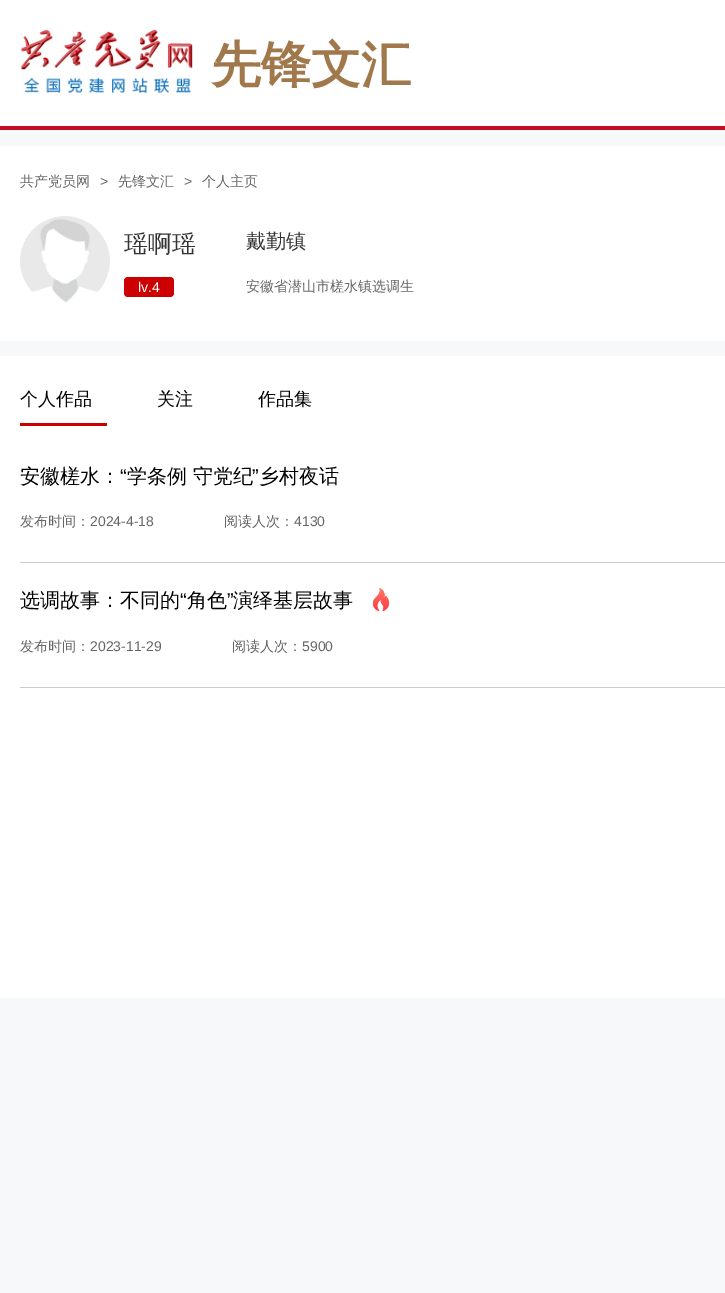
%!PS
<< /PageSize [725 1293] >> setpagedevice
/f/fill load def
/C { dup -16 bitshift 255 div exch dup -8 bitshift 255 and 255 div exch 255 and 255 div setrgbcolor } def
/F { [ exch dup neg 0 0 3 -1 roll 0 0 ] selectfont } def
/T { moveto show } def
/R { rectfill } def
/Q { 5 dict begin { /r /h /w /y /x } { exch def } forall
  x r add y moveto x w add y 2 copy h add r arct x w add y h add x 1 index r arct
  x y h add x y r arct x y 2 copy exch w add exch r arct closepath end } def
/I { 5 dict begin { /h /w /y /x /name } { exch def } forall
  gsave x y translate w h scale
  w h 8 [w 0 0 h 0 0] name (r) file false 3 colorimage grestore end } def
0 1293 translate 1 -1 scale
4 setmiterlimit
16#F7F8F9 C
0 0 725 1293 R
16#FFFFFF C
0 0 725 126 R
16#C30D23 C
0 126 725 4 R
(1.rgb) 21 30 172 64 I
/WenQuanYiZenHei-Bold 50 F
16#A0784B C
(先锋文汇) 211 82 T
16#FFFFFF C
0 146 725 195 R
/WenQuanYiZenHei-Medium 14 F
16#666666 C
(共产党员网) 20 186 T
/LiberationSans-Regular 14 F
(>) 100 186 T
/WenQuanYiZenHei-Medium 14 F
(先锋文汇) 118 186 T
/LiberationSans-Regular 14 F
(>) 184 186 T
/WenQuanYiZenHei-Medium 14 F
(个人主页) 202 186 T
(2.rgb) 20 216 90 87 I
/WenQuanYiZenHei-Medium 24 F
16#333333 C
(瑶啊瑶) 124 252 T
16#CC0000 C
124 277 50 20 4 Q f
/LiberationSans-Regular 14 F
16#FFFFFF C
(lv.4) 138 292 T
/WenQuanYiZenHei-Medium 20 F
16#333333 C
(戴勤镇) 246 248 T
/WenQuanYiZenHei-Medium 14 F
16#666666 C
(安徽省潜山市槎水镇选调生) 246 291 T
16#FFFFFF C
0 356 725 642 R
/WenQuanYiZenHei-Medium 18 F
16#000000 C
(个人作品) 20 405 T
16#CC0000 C
20 423 87 3 R
16#000000 C
(关注) 157 405 T
(作品集) 258 405 T
16#CCCCCC C
20 562 705 1 R
/WenQuanYiZenHei-Medium 20 F
16#000000 C
(安徽槎水：) 20 483 T
/LiberationSans-Regular 20 F
(“) 120 483 T
/WenQuanYiZenHei-Medium 20 F
(学条例 守党纪) 127 483 T
/LiberationSans-Regular 20 F
(”) 252 483 T
/WenQuanYiZenHei-Medium 20 F
(乡村夜话) 259 483 T
/WenQuanYiZenHei-Medium 14 F
16#666666 C
(发布时间：) 20 526 T
/LiberationSans-Regular 14 F
(2024-4-18) 90 526 T
/WenQuanYiZenHei-Medium 14 F
(阅读人次：) 224 526 T
/LiberationSans-Regular 14 F
(4130) 294 526 T
16#CCCCCC C
20 687 705 1 R
/WenQuanYiZenHei-Medium 20 F
16#000000 C
(选调故事：不同的) 20 607 T
/LiberationSans-Regular 20 F
(“) 180 607 T
/WenQuanYiZenHei-Medium 20 F
(角色) 187 607 T
/LiberationSans-Regular 20 F
(”) 227 607 T
/WenQuanYiZenHei-Medium 20 F
(演绎基层故事) 233 607 T
(3.rgb) 373 588 16 23 I
/WenQuanYiZenHei-Medium 14 F
16#666666 C
(发布时间：) 20 651 T
/LiberationSans-Regular 14 F
(2023-11-29) 90 651 T
/WenQuanYiZenHei-Medium 14 F
(阅读人次：) 232 651 T
/LiberationSans-Regular 14 F
(5900) 302 651 T
showpage
